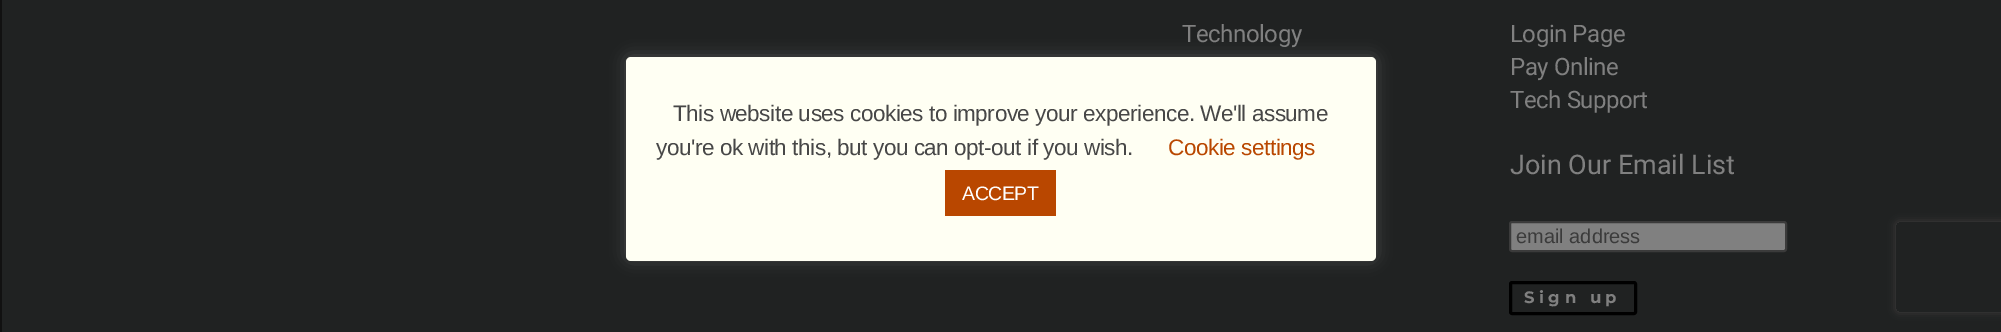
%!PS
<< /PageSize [2001 332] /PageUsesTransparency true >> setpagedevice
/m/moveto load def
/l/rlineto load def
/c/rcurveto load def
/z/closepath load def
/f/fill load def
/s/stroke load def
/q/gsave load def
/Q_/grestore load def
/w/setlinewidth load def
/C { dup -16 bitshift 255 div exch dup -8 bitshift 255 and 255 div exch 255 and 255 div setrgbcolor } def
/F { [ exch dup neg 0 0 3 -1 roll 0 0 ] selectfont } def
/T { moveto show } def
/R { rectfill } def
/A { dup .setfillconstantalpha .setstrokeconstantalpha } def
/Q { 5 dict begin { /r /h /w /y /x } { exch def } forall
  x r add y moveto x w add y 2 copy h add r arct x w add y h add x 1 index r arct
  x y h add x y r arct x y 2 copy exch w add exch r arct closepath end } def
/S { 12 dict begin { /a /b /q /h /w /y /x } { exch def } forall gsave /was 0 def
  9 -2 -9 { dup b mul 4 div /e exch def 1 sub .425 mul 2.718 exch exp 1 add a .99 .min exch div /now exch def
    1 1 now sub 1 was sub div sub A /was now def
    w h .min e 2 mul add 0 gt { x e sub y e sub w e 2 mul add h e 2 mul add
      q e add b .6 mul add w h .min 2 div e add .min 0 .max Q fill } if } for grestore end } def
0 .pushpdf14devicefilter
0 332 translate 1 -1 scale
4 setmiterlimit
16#202222 C
0 0 2001 332 R
16#111111 C
0 0 2 332 R
16#ACABAB C
626 56 750 204 5 7.5 .3 S
16#FFFFF3 C
626 57 750 204 5 Q f
/LiberationSans-Regular 22.5 F
16#474747 C
673 121 m -.45 0 (This website uses cookies to improve your experience. We'll assume) ashow
656 155 m -.45 0 (you're ok with this, but you can opt-out if you wish.) ashow
16#B94700 C
1168 155 m -.45 0 (Cookie settings) ashow
945 170 111 46 R
/LiberationSans-Regular 19.5 F
16#FFFFFF C
962 200 m -.45 0 (ACCEPT) ashow
/Roboto-Regular 24 F
16#808080 C
1182 42 m -.45 0 (Technology) ashow
1510 42 m -.45 0 (Login Page) ashow
1510 75 m -.45 0 (Pay Online) ashow
1510 108 m -.45 0 (Tech Support) ashow
/Roboto-Regular 27 F
(Join Our Email List) 1510 174 T
1510 222 276 29 2 Q q f Q_
16#3B3B3B C
2 w
s
/LiberationSans-Regular 20 F
(email address) 1516 243 T
16#000000 C
3 w
1510.5 282.5 125 31 1.5 Q s
/Montserrat-Bold 16.5 F
16#808080 C
1524 303 m 4.5 0 (Sign up) ashow
q
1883 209 m 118 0 l 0 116 l -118 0 l z 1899 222 m 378 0 l 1.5 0 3 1.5 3 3 c 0 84 l 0 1.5 -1.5 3 -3 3 c -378 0 l -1.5 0 -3 -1.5 -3 -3 c 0 -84 l 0 -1.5 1.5 -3 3 -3 c z eoclip newpath
16#404040 C
1896 222 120 90 3 4 1 S
Q_
.poppdf14devicefilter showpage
